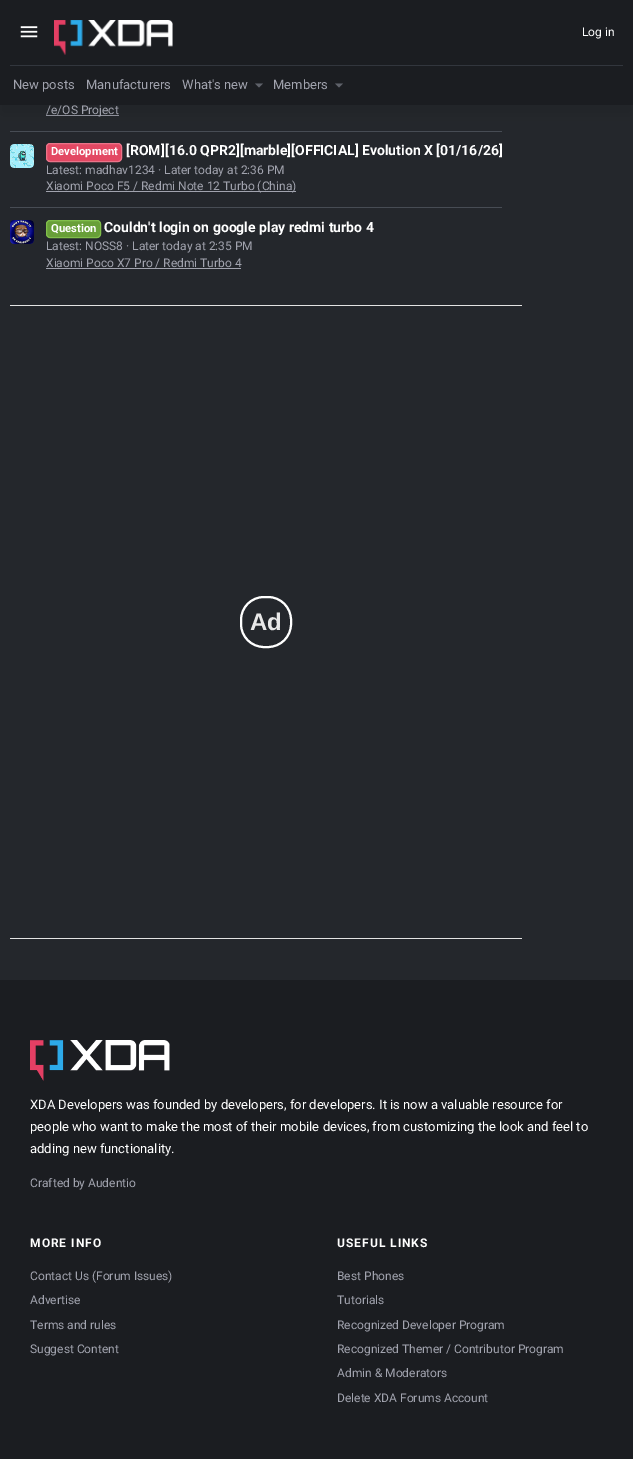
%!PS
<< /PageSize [633 1459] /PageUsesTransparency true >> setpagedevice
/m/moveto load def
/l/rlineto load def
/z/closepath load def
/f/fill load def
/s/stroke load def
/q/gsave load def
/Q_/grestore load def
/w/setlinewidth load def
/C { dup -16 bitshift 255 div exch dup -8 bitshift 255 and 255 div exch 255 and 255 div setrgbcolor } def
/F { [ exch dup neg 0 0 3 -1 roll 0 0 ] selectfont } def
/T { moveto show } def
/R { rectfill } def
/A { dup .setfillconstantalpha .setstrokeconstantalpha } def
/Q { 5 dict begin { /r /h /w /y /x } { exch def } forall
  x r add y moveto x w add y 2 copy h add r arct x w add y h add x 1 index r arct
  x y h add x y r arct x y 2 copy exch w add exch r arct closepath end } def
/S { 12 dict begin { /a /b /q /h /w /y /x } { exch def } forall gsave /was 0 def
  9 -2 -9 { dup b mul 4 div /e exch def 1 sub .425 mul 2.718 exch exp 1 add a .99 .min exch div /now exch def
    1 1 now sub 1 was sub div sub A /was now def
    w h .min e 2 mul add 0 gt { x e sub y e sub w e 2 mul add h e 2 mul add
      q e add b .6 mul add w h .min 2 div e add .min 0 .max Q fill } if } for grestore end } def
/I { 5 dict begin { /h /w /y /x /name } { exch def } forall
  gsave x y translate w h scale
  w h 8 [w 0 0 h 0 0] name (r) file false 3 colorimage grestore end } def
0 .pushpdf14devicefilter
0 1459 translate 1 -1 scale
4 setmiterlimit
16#24272C C
0 0 633 1459 R
16#1B1D21 C
0 0 633 65 R
(1.rgb) 20 26 18 12 I
16#474C54 C
10 131 492 1 R
16#A1A3AE C
46 115 73 1 R
16#1B1D21 C
0 75 633 40 0 8 .3 S
(2.rgb) 54 20 119 35 I
/Roboto-Regular 12 F
16#FFFFFF C
(Log in) 582 36 T
16#1B1D21 C
0 65 633 40 R
16#32363D C
10 65 613 1 R
/Roboto-Regular 13 F
16#A1A3AE C
(New posts) 13 89 T
(Manufacturers) 86 89 T
(What's new) 182 89 T
16#5F626A C
255 83.5 m 4 4 l 4 -4 l z f
16#A1A3AE C
(Members) 273 89 T
16#5F626A C
335 83.5 m 4 4 l 4 -4 l z f
/Roboto-Regular 12 F
16#A1A3AE C
(/e/OS Project) 46 114 T
16#474C54 C
10 207 492 1 R
(3.rgb) 10 144 24 24 I
16#E34863 C
46.5 143.5 75 18 3.5 Q q f Q_
16#EA7489 C
s
/Roboto-Bold 11.25 F
16#FFFFFF C
(Development) 51 155 T
/Roboto-Bold 14 F
([ROM][16.0 QPR2][marble][OFFICIAL] Evolution X [01/16/26]) 126 155 T
/Roboto-Regular 12 F
16#A1A3AE C
(Latest: madhav1234 · Later today at 2:36 PM) 46 174 T
46 191 250 1 R
(Xiaomi Poco F5 / Redmi Note 12 Turbo \(China\)) 46 190 T
(4.rgb) 10 220 24 24 I
16#689F38 C
46.5 220.5 54 17 3.5 Q q f Q_
16#81BF4B C
s
/Roboto-Bold 11.25 F
16#FFFFFF C
(Question) 51 232 T
/Roboto-Bold 14 F
(Couldn't login on google play redmi turbo 4) 104 232 T
/Roboto-Regular 12 F
16#A1A3AE C
(Latest: NOSS8 · Later today at 2:35 PM) 46 250 T
(Xiaomi Poco X7 Pro / Redmi Turbo 4) 46 267 T
46 268 195 1 R
16#E3E3E3 C
10 305 512 1 R
10 938 512 1 R
16#FFFFFF C
2 w
241 597 50 50 23 Q s
/LiberationSans-Bold 24 F
16#E8E8E8 C
(Ad) 250 630 T
16#1B1D21 C
0 980 633 479 R
(5.rgb) 30 1040 140 41 I
/Roboto-Regular 13 F
16#FFFFFF C
(XDA Developers was founded by developers, for developers. It is now a valuable resource for) 30 1109 T
(people who want to make the most of their mobile devices, from customizing the look and feel to) 30 1131 T
(adding new functionality.) 30 1153 T
/Roboto-Regular 12 F
16#A1A3AE C
(Crafted by Audentio) 30 1187 T
/Roboto-Bold 12 F
16#FFFFFF C
30 1247 m 1 0 (MORE INFO) ashow
/Roboto-Regular 12 F
16#A1A3AE C
(Contact Us \(Forum Issues\)) 30 1280 T
(Advertise) 30 1304 T
(Terms and rules) 30 1329 T
(Suggest Content) 30 1353 T
/Roboto-Bold 12 F
16#FFFFFF C
337 1247 m 1 0 (USEFUL LINKS) ashow
/Roboto-Regular 12 F
16#A1A3AE C
(Best Phones) 337 1280 T
(Tutorials) 337 1304 T
(Recognized Developer Program) 337 1329 T
(Recognized Themer / Contributor Program) 337 1353 T
(Admin & Moderators) 337 1377 T
(Delete XDA Forums Account) 337 1402 T
.poppdf14devicefilter showpage
